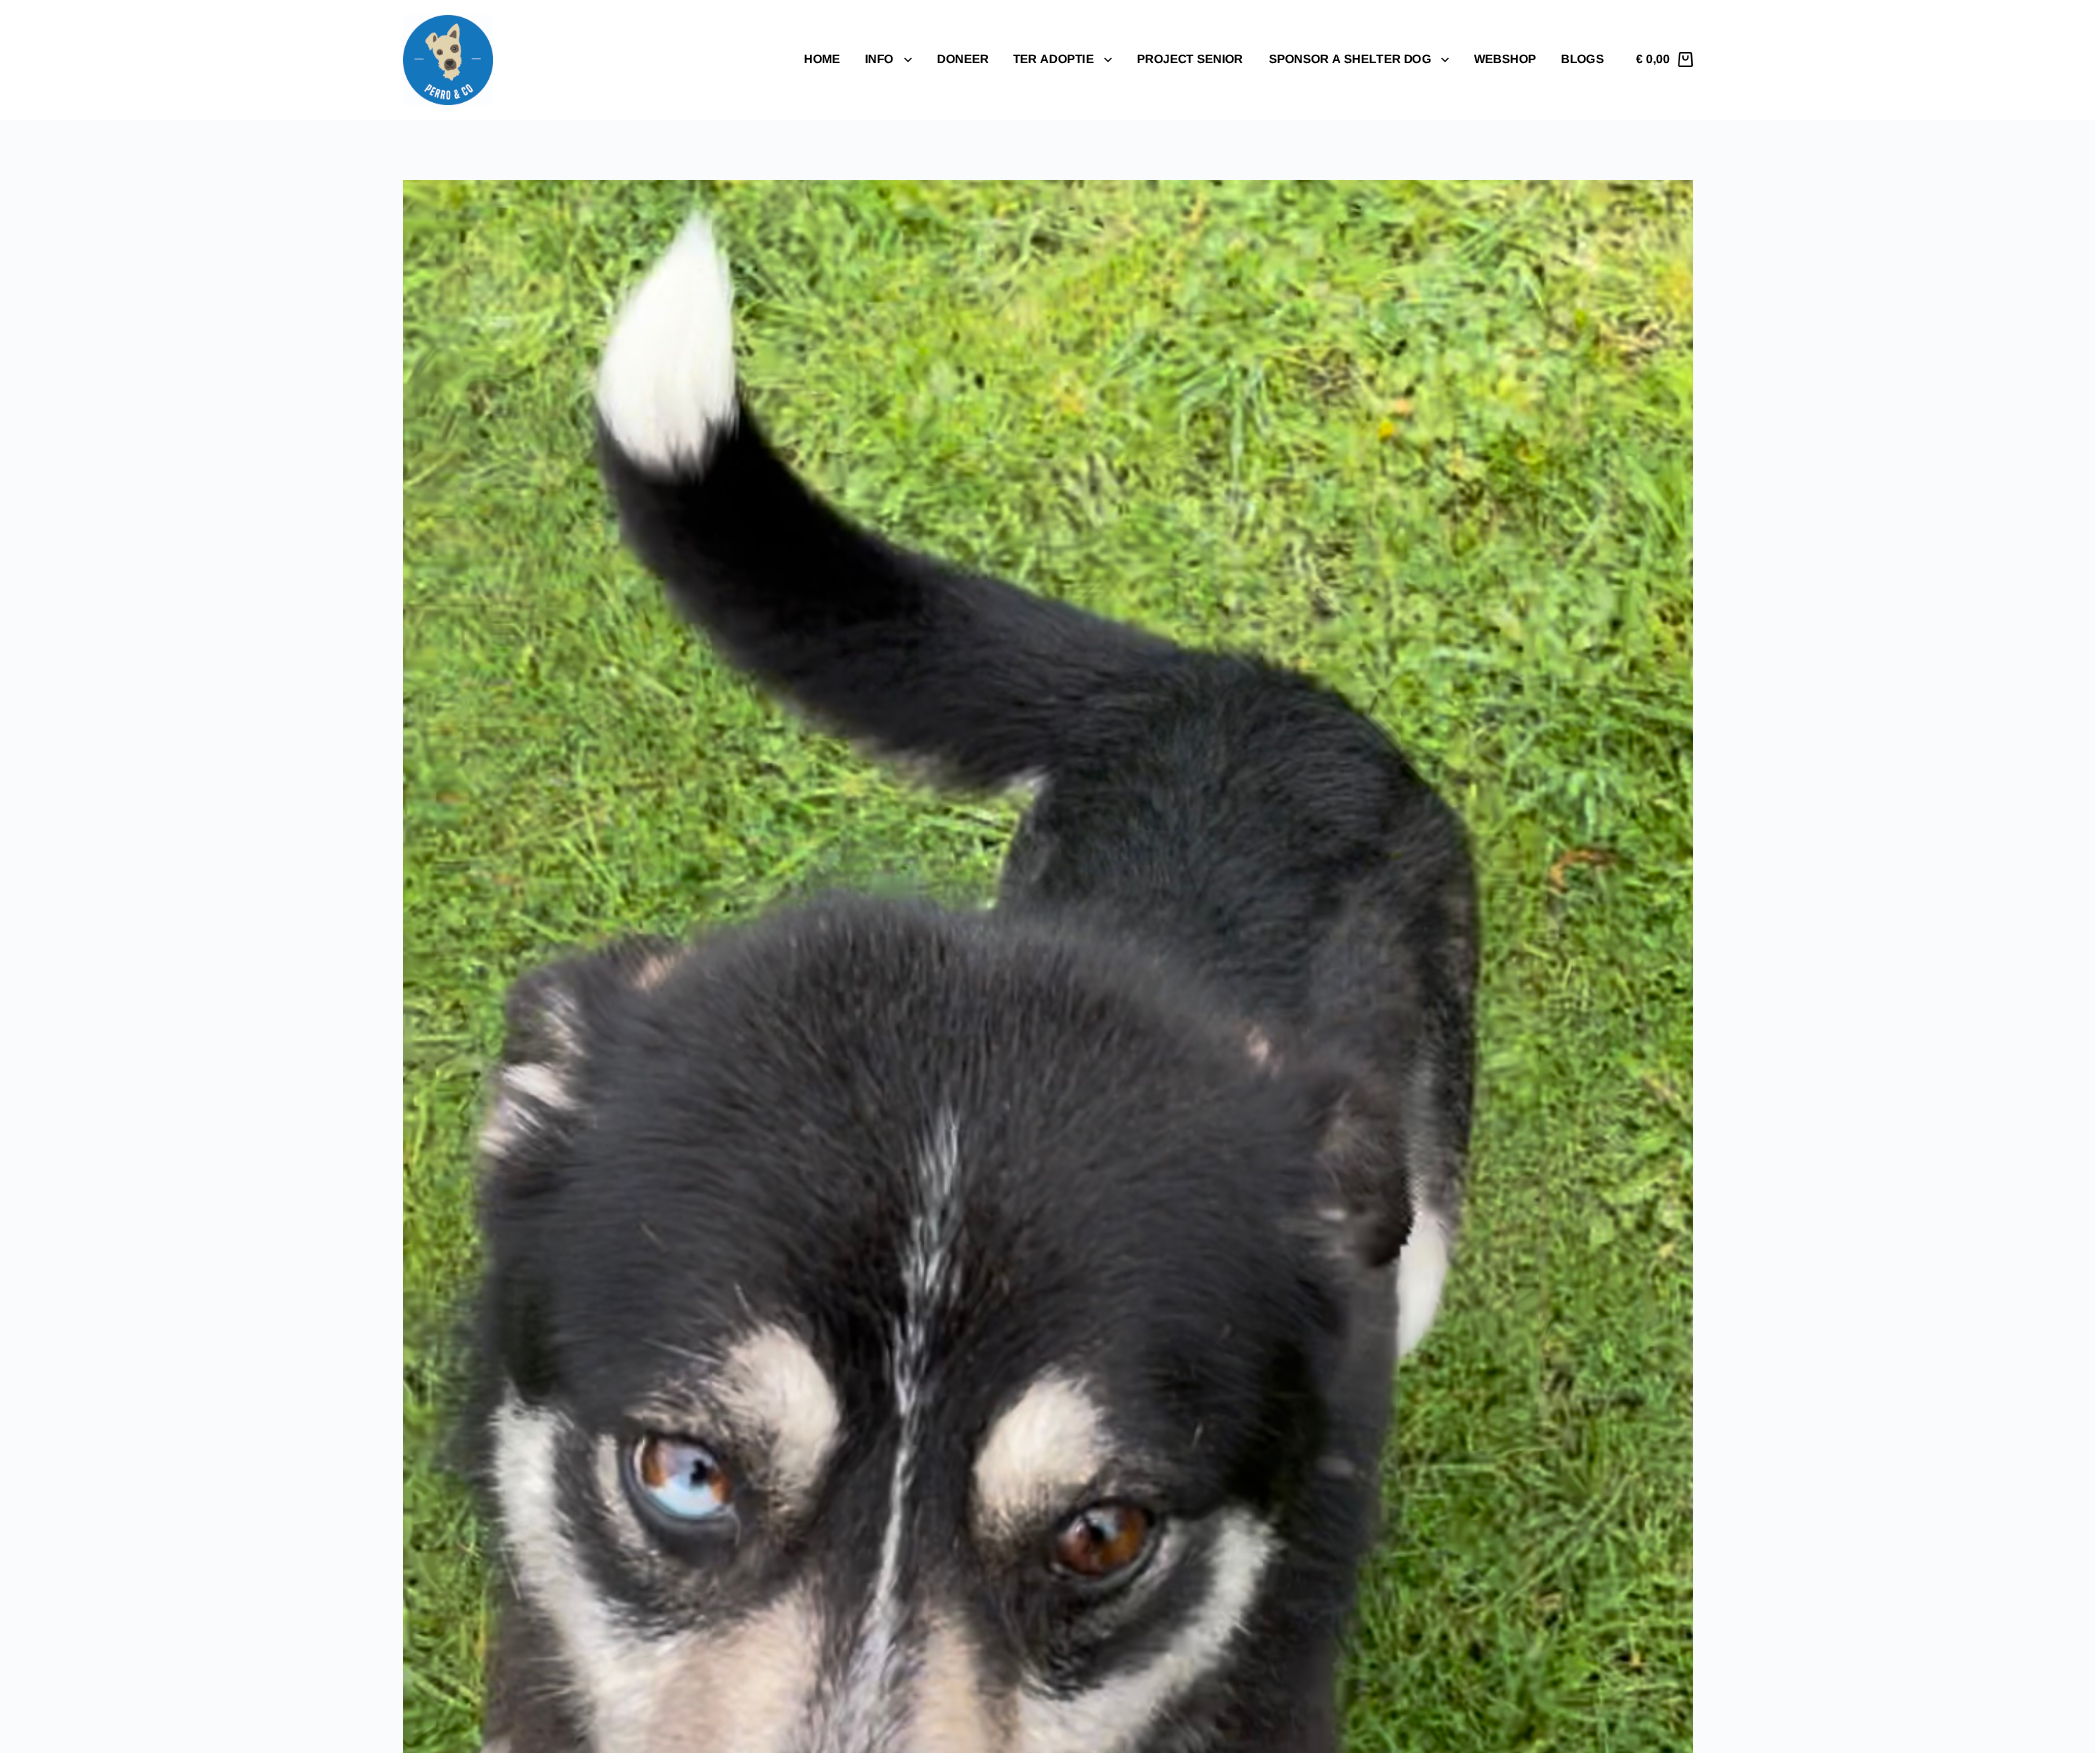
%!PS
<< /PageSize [2095 1753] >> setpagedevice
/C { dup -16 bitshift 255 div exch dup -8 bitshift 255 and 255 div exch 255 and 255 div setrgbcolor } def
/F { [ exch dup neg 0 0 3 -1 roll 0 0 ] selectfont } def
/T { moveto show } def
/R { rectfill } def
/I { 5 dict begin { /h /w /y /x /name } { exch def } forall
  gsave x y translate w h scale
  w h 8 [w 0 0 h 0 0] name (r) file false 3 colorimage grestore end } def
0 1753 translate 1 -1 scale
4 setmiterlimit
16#FAFBFC C
0 0 2095 1753 R
16#FFFFFF C
0 0 2095 120 R
(1.rgb) 403 15 90 90 I
/LiberationSans-Bold 12 F
16#000000 C
(HOME) 804 63 T
(INFO) 865 63 T
(2.rgb) 904 57 8 6 I
(DONEER) 937 63 T
(TER ADOPTIE) 1013 63 T
(2.rgb) 1104 57 8 6 I
(PROJECT SENIOR) 1137 63 T
(SPONSOR A SHELTER DOG) 1269 63 T
(2.rgb) 1441 57 8 6 I
(WEBSHOP) 1474 63 T
(BLOGS) 1561 63 T
(€ 0,00) 1636 63 T
(3.rgb) 1678 52 15 15 I
(4.rgb) 403 180 1290 1573 I
showpage
